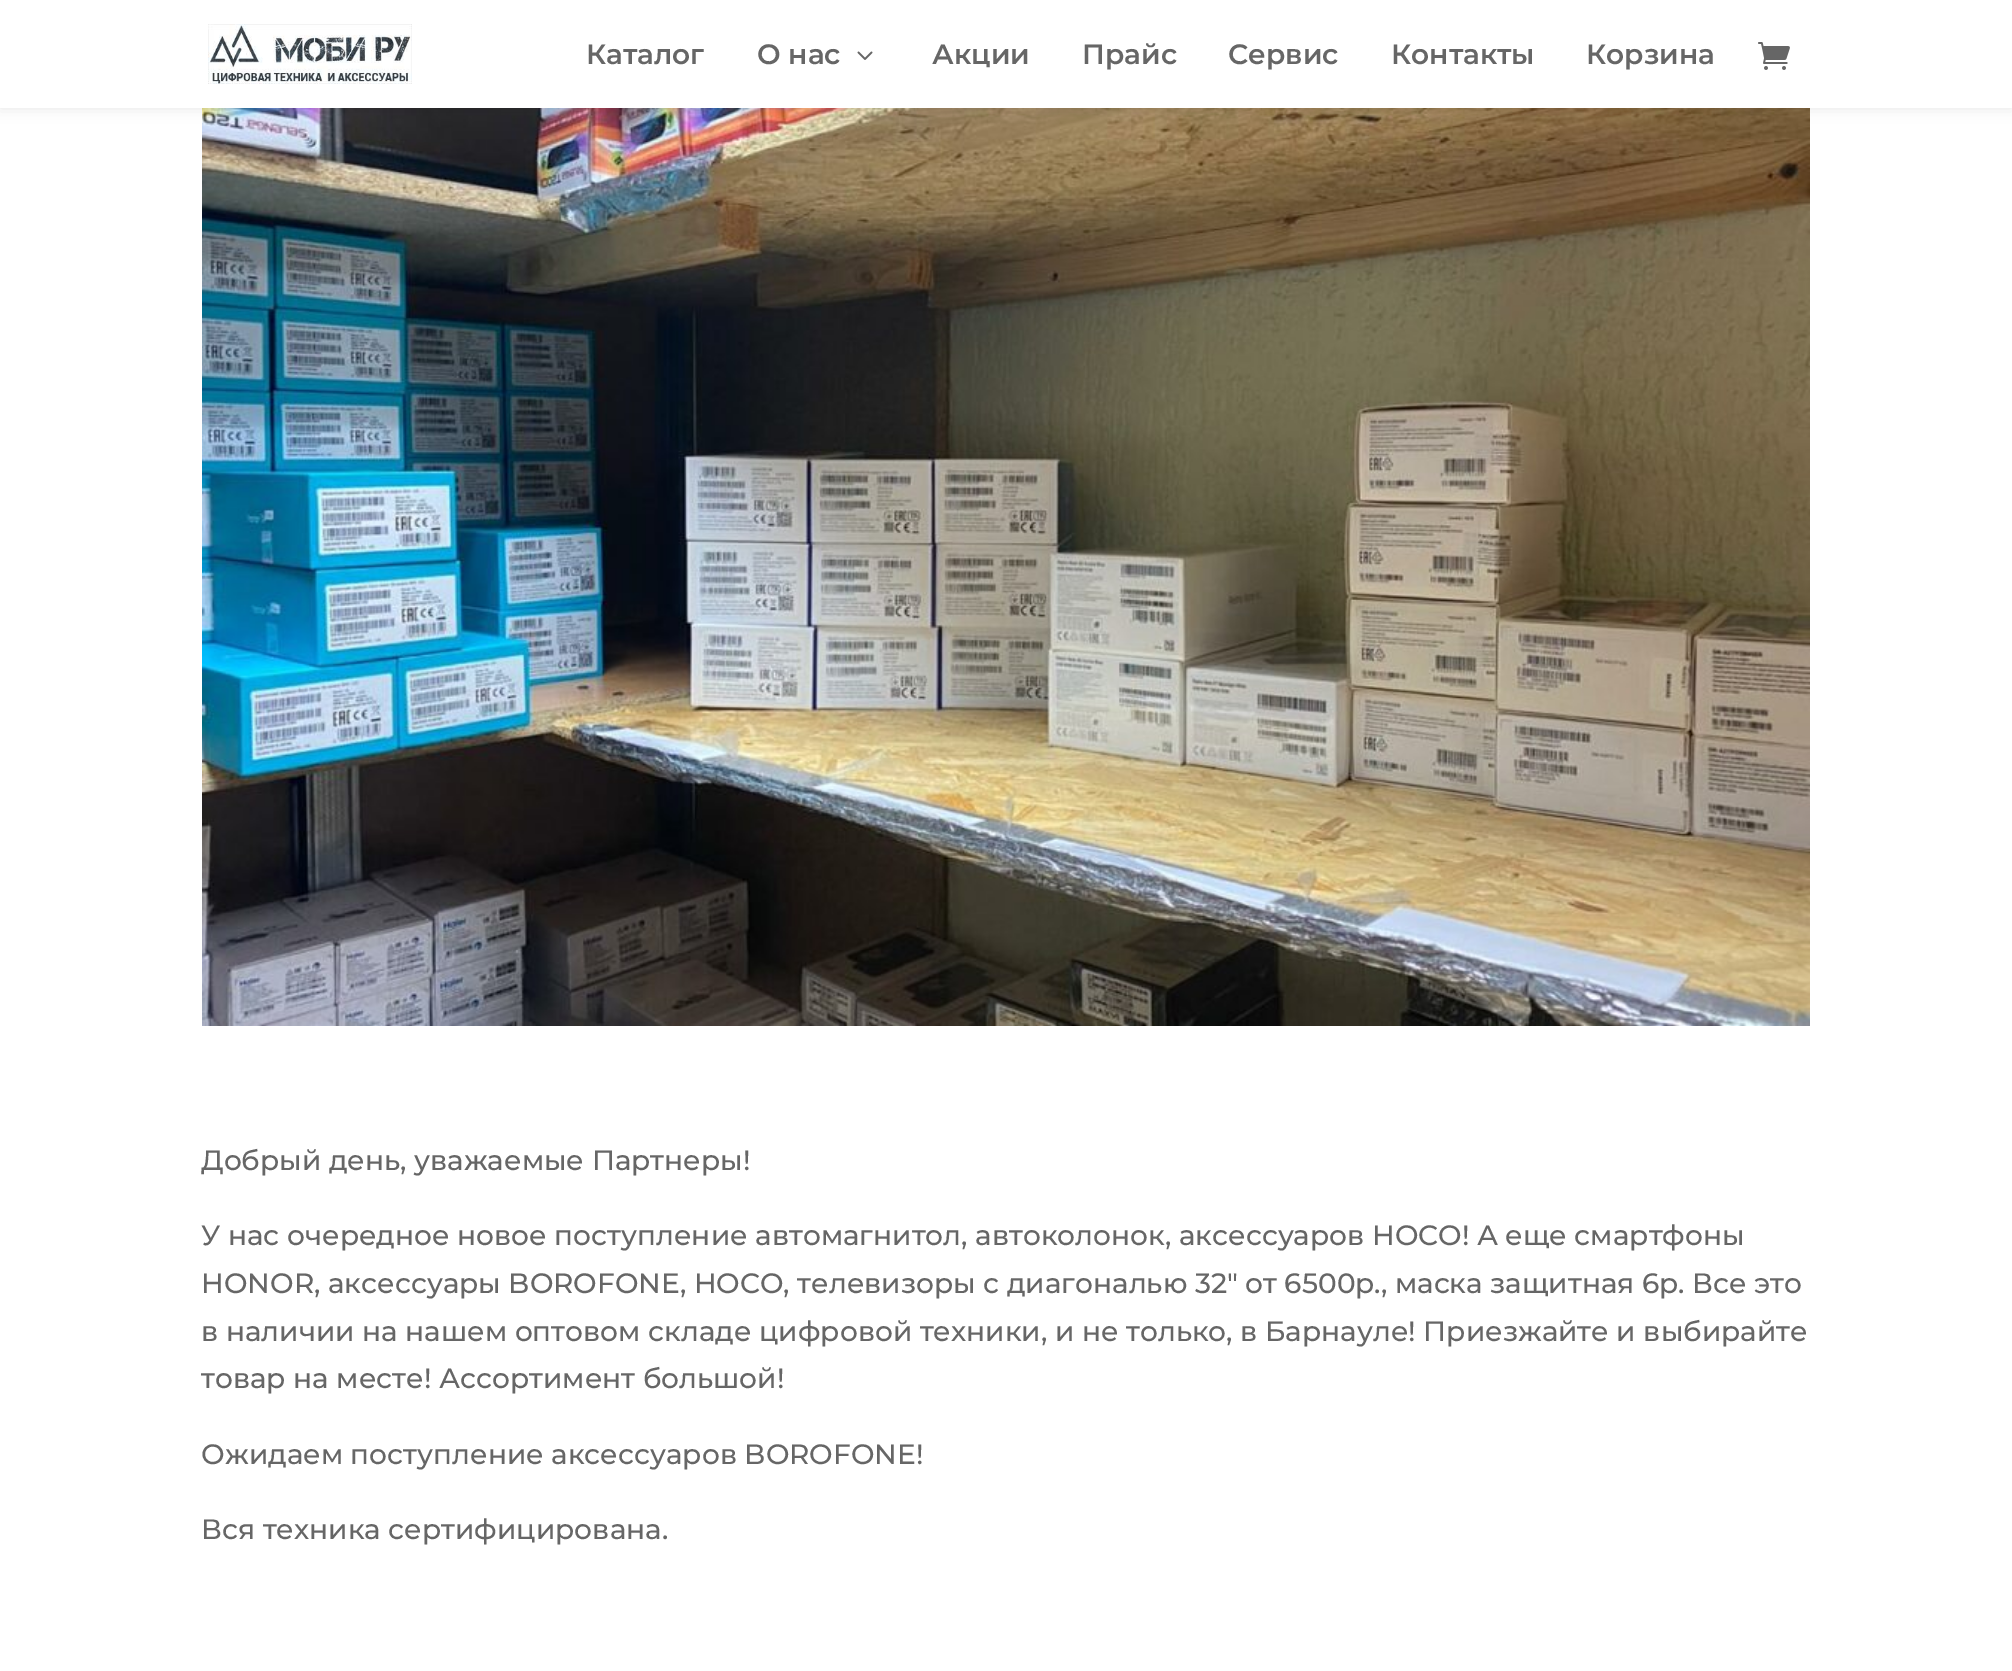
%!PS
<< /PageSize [2012 1671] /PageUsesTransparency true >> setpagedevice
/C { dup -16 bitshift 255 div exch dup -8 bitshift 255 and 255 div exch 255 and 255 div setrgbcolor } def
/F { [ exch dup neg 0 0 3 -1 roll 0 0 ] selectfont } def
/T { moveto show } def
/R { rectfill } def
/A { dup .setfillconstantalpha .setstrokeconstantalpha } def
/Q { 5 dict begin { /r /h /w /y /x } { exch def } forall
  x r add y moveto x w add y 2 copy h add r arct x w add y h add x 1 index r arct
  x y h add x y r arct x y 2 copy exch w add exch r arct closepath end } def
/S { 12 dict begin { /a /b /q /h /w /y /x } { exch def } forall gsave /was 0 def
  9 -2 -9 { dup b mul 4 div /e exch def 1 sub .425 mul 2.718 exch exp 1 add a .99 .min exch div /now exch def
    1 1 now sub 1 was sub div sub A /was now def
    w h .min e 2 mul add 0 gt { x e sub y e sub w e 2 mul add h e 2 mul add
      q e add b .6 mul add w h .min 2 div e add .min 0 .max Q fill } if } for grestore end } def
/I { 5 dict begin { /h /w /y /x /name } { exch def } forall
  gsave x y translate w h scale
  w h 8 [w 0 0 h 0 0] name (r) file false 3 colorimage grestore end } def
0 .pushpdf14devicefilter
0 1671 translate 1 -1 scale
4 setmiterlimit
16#FFFFFF C
0 0 2012 1671 R
(4.rgb) 202 108 1608 918 I
16#000000 C
0 0 2012 108 0 7 .1 S
16#FFFFFF C
0 0 2012 108 R
(1.rgb) 208 24 204 60 I
/Montserrat-SemiBold 28 F
16#666666 C
(Каталог) 586 64 T
(О нас) 757 64 T
(2.rgb) 857 51 16 9 I
(Акции) 932 64 T
(Прайс) 1082 64 T
(Сервис) 1228 64 T
(Контакты) 1391 64 T
(Корзина) 1586 64 T
(3.rgb) 1758 42 32 28 I
/Montserrat-Medium 28 F
(Добрый день, уважаемые Партнеры!) 201 1170 T
(У нас очередное новое поступление автомагнитол, автоколонок, аксессуаров HOCO! А еще смартфоны) 201 1245 T
(HONOR, аксессуары BOROFONE, HOCO, телевизоры с диагональю 32″ от 6500р., маска защитная 6р. Все это) 201 1293 T
(в наличии на нашем оптовом складе цифровой техники, и не только, в Барнауле! Приезжайте и выбирайте) 201 1341 T
(товар на месте! Ассортимент большой!) 201 1388 T
(Ожидаем поступление аксессуаров BOROFONE!) 201 1464 T
(Вся техника сертифицирована.) 201 1539 T
.poppdf14devicefilter showpage
